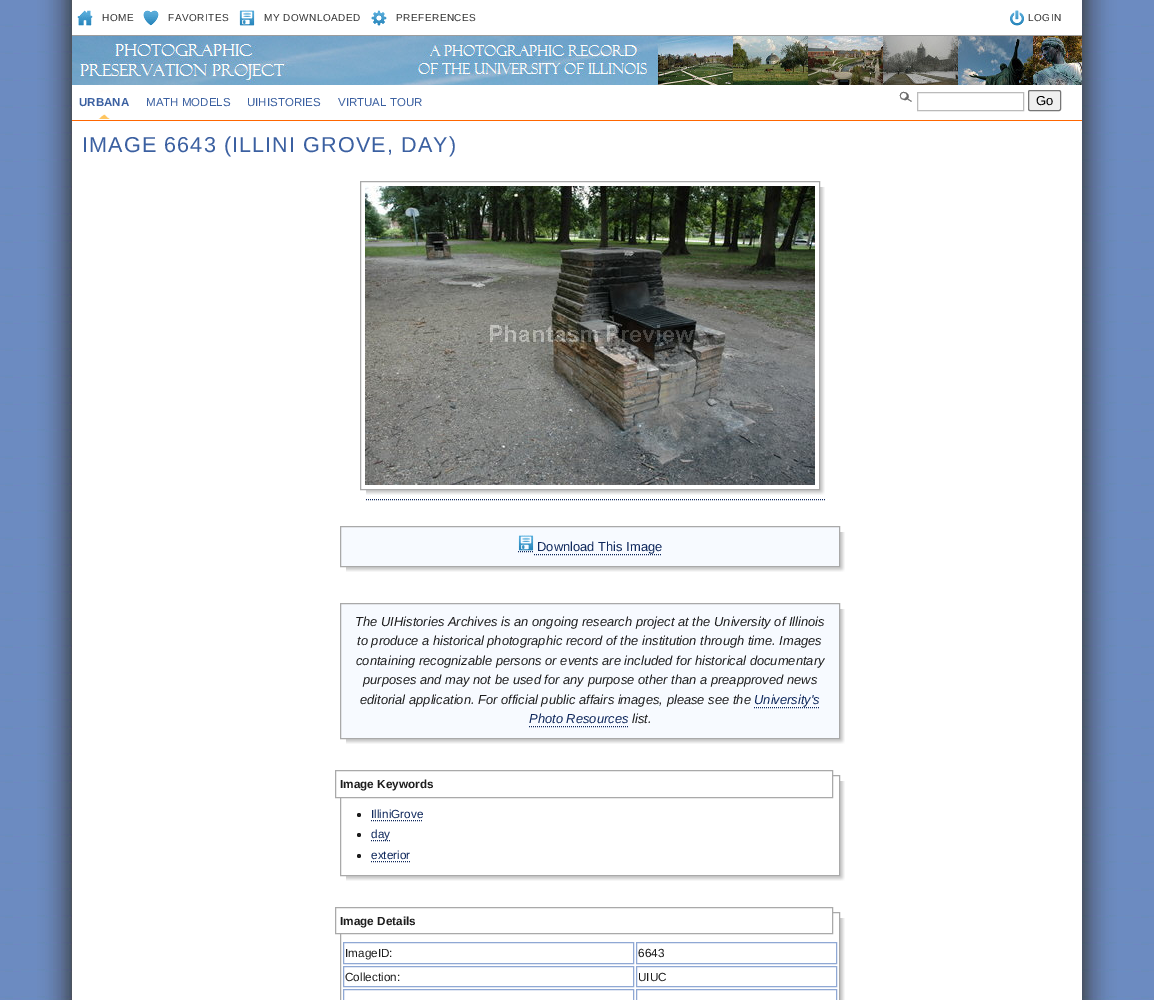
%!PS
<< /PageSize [1154 1000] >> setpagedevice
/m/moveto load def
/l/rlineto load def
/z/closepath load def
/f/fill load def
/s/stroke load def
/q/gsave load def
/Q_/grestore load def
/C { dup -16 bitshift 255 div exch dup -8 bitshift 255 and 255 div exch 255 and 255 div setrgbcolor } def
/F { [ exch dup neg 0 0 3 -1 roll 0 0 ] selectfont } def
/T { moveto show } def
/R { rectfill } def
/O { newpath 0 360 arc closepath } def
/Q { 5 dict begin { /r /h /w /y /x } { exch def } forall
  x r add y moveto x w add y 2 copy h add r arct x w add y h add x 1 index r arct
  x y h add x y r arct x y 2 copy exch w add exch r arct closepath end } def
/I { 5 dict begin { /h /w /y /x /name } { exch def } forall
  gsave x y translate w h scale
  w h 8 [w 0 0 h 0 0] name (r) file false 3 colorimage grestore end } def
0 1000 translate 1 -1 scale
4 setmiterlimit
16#FFFFFF C
0 0 1154 1000 R
(1.rgb) 0 0 1154 1000 I
72 0 1010 1000 R
16#9D9D9D C
72 35 1010 1 R
(2.rgb) 77 10 16 16 I
/LiberationSans-Regular 10 F
16#333333 C
102 21 m .5 0 (HOME) ashow
(3.rgb) 143 10 16 16 I
168 21 m .5 0 (FAVORITES) ashow
(4.rgb) 239 10 16 16 I
264 21 m .5 0 (MY DOWNLOADED) ashow
(5.rgb) 371 10 16 16 I
396 21 m .5 0 (PREFERENCES) ashow
(6.rgb) 1010 10 14 16 I
1028 21 m .5 0 (LOGIN) ashow
(7.rgb) 72 36 1010 49 I
16#FF6600 C
72 120 1010 1 R
(8.rgb) 95 90 18 29 I
/LiberationSans-Bold 11.5 F
16#3B60A1 C
(URBANA) 79 106 T
/LiberationSans-Regular 11.5 F
(MATH MODELS) 146 106 T
(UIHISTORIES) 247 106 T
(VIRTUAL TOUR) 338 106 T
/LiberationSans-Regular 21.6 F
82 152 m 1.1 0 (IMAGE 6643 \(ILLINI GROVE, DAY\)) ashow
(9.rgb) 366 187 459 308 I
16#A9A9A9 C
360.5 181.5 459 308 rectstroke
(10.rgb) 365 186 450 299 I
16#0F285C C
[1 1] 0 setdash
366 499.5 m 460 0 l s
(11.rgb) 346 532 499 40 I
16#F7FAFF C
340.5 526.5 m 499 0 l 0 40 l -499 0 l z q f Q_
16#A9A9A9 C
[] 0 setdash
s
(12.rgb) 518 535 16 16 I
/LiberationSans-Regular 12.95 F
16#0F285C C
(Download This Image) 537 551 T
[1 1] 0 setdash
518 551.5 m 16 0 l s
534 554.5 m 128 0 l s
(13.rgb) 346 609 499 135 I
16#F7FAFF C
340.5 603.5 m 499 0 l 0 135 l -499 0 l z q f Q_
16#A9A9A9 C
[] 0 setdash
s
/LiberationSans-Italic 12.95 F
16#1D1D1D C
(The UIHistories Archives is an ongoing research project at the University of Illinois) 355 626 T
(to produce a historical photographic record of the institution through time. Images) 357 645 T
(containing recognizable persons or events are included for historical documentary) 356 665 T
(purposes and may not be used for any purpose other than a preapproved news) 363 684 T
(editorial application. For official public affairs images, please see the) 360 704 T
16#0F285C C
(University's) 754 704 T
[1 1] 0 setdash
754 707.5 m 66 0 l s
(Photo Resources) 529 723 T
529 726.5 m 99 0 l s
16#1D1D1D C
(list.) 632 723 T
(14.rgb) 346 781 499 100 I
16#A9A9A9 C
[] 0 setdash
340.5 775.5 499 100 rectstroke
16#FFFFFF C
340 775 492 22 R
16#A9A9A9 C
335.5 770.5 497 27 rectstroke
/LiberationSans-Bold 11.75 F
16#1D1D1D C
(Image Keywords) 340 788 T
359 815 2 O f
/LiberationSans-Regular 11.75 F
16#0F285C C
(IlliniGrove) 371 818 T
[1 1] 0 setdash
371 820.5 m 52 0 l s
16#1D1D1D C
359 835 2 O f
16#0F285C C
371 840.5 m 19 0 l s
(day) 371 838 T
16#1D1D1D C
359 856 2 O f
16#0F285C C
(exterior) 371 859 T
371 861.5 m 39 0 l s
(15.rgb) 840 918 5 82 I
16#A9A9A9 C
[] 0 setdash
340.5 912.5 499 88 rectstroke
16#FFFFFF C
340 912 492 21 R
16#A9A9A9 C
335.5 907.5 497 26 rectstroke
/LiberationSans-Bold 11.75 F
16#1D1D1D C
(Image Details) 340 925 T
16#8FA8D4 C
343.5 942.5 290 21 rectstroke
/LiberationSans-Regular 11.75 F
16#1D1D1D C
(ImageID:) 345 957 T
16#8FA8D4 C
636.5 942.5 200 21 rectstroke
16#1D1D1D C
(6643) 638 957 T
16#8FA8D4 C
343.5 966.5 290 20 rectstroke
16#1D1D1D C
(Collection:) 345 981 T
16#8FA8D4 C
636.5 966.5 200 20 rectstroke
16#1D1D1D C
(UIUC) 638 981 T
16#8FA8D4 C
343.5 989.5 290 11 rectstroke
636.5 989.5 200 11 rectstroke
(16.rgb) 899 91 13 11 I
16#BBBBBB C
917.5 92.5 106 18 rectstroke
16#EFEFEF C
1028.5 90.5 32 20 1.5 Q q f Q_
16#767676 C
s
/LiberationSans-Regular 13 F
16#000000 C
(Go) 1036 105 T
showpage
